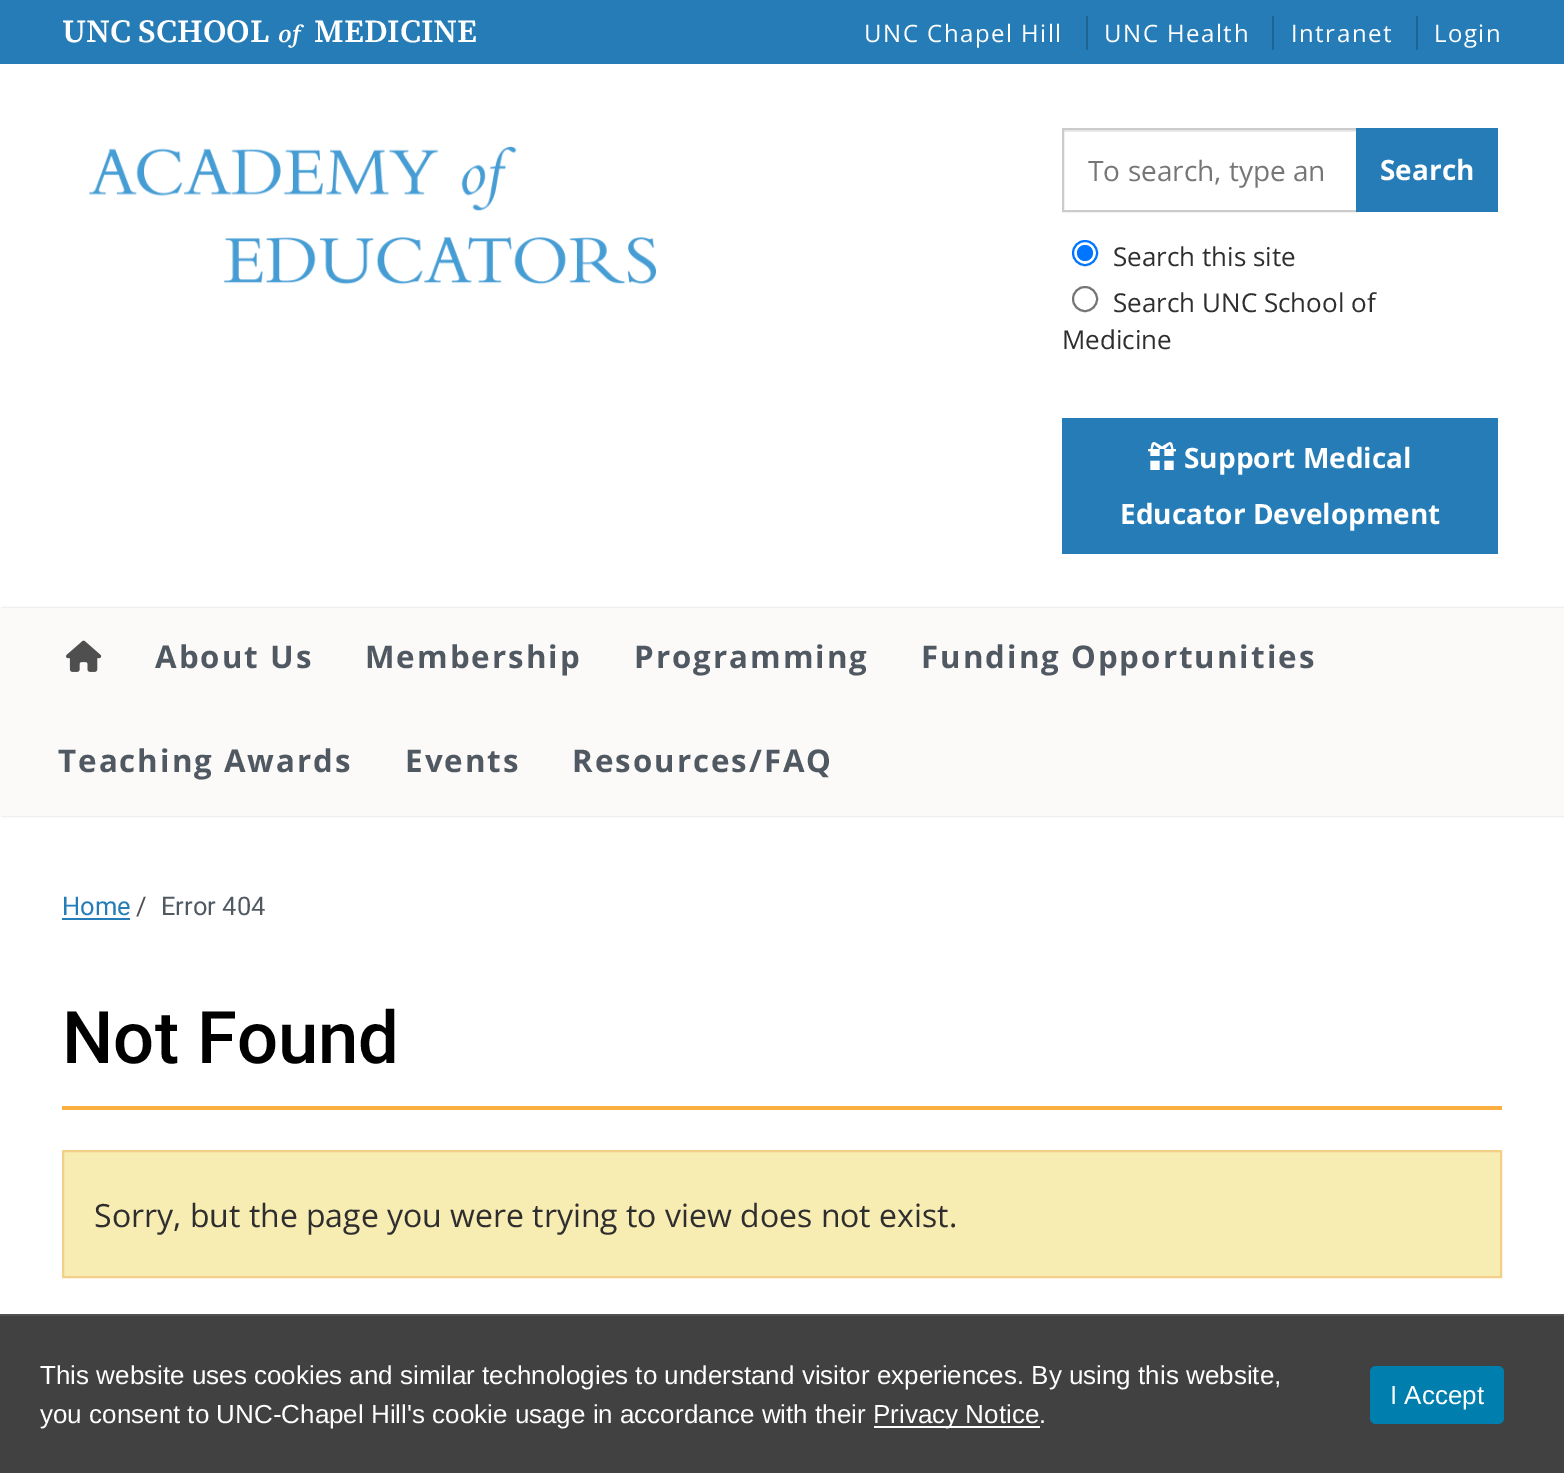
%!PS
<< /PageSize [1564 1473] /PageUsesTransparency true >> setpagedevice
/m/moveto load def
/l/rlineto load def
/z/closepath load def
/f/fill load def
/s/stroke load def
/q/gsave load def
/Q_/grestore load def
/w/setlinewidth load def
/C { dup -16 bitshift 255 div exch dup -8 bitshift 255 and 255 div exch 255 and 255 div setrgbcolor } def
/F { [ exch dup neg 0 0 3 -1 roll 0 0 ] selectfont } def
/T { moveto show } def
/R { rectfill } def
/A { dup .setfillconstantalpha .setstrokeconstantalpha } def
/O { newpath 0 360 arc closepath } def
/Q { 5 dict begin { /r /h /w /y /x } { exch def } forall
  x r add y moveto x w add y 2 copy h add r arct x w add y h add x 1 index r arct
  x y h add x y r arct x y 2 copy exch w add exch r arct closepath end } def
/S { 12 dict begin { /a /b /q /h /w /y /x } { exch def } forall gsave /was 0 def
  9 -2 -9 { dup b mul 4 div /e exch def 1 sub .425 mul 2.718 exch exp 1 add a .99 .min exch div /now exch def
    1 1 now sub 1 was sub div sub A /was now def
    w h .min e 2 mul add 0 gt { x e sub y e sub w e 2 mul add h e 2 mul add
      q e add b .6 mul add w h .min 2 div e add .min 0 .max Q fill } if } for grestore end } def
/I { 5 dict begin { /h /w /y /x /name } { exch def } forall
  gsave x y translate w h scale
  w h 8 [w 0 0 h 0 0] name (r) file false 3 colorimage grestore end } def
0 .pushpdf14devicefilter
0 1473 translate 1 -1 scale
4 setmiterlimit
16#FFFFFF C
0 0 1564 1473 R
16#257CB7 C
0 0 1564 64 R
/SourceSerif4-SemiBold 32.25 F
16#FFFFFF C
(UNC SCHOOL) 62 42 T
/SourceSerif4-SemiBoldItalic 24 F
(of) 278 42 T
/SourceSerif4-SemiBold 32.25 F
(MEDICINE) 314 42 T
/OpenSans-Regular 24 F
864 42 m 1.5 0 (UNC Chapel Hill) ashow
16#1E6392 C
1086 16 2 34 R
16#FFFFFF C
1104 42 m 1.5 0 (UNC Health) ashow
16#1E6392 C
1272 16 2 34 R
16#FFFFFF C
1291 42 m 1.5 0 (Intranet) ashow
16#1E6392 C
1416 16 2 34 R
16#FFFFFF C
1434 42 m 1.5 0 (Login) ashow
(1.rgb) 89 146 567 139 I
16#ECECEC C
1064 130 292 2 R
16#CCCCCC C
2 w
1063 129 294 82 rectstroke
/OpenSans-Regular 28 F
16#767676 C
(To search, type an) 1088 181 T
16#257CB7 C
1356 128 142 84 R
/OpenSans-Bold 28 F
16#FFFFFF C
(Search) 1380 180 T
16#0075FF C
1085 253 12 O s
1085 253 8 O f
/OpenSans-Regular 26 F
16#2E2E2E C
(Search this site) 1113 266 T
16#767676 C
1085 299 12 O s
16#2E2E2E C
(Search UNC School of) 1113 312 T
(Medicine) 1062 349 T
16#257CB7 C
1062 418 436 136 R
(2.rgb) 1148 442 28 28 I
/OpenSans-Bold 28 F
16#FFFFFF C
(Support Medical) 1184 468 T
(Educator Development) 1120 524 T
16#BDBDBD C
2 608 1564 208 0 1 .75 S
16#FBFAF8 C
0 608 1564 208 R
(3.rgb) 66 640 36 32 I
/OpenSans-Bold 31.25 F
16#505962 C
155 668 m 2 0 (About Us) ashow
365 668 m 2 0 (Membership) ashow
634 668 m 2 0 (Programming) ashow
921 668 m 2 0 (Funding Opportunities) ashow
58 772 m 2 0 (Teaching Awards) ashow
405 772 m 2 0 (Events) ashow
572 772 m 2 0 (Resources/FAQ) ashow
/Roboto-Regular 25.5 F
16#257CB7 C
(Home) 62 915 T
62 918 68 2 R
16#4F4F4F C
(/) 136 915 T
16#505962 C
(Error 404) 161 915 T
16#FBAF41 C
62 1106 1440 4 R
/Roboto-Medium 72.5 F
16#000000 C
(Not Found) 62 1063 T
16#F7ECB2 C
63 1151 m 1438 0 l 0 126 l -1438 0 l z q f Q_
16#F3CF87 C
s
/OpenSans-Regular 32 F
16#2E2E2E C
(Sorry, but the page you were trying to view does not exist.) 94 1227 T
16#414141 C
0 1316 1564 157 R
16#515151 C
0 1314 1564 2 R
/LiberationSans-Regular 26 F
16#FFFFFF C
(This website uses cookies and similar technologies to understand visitor experiences. By using this website,) 40 1384 T
(you consent to UNC-Chapel Hill's cookie usage in accordance with their) 40 1423 T
874 1426 166 2 R
(Privacy Notice.) 873 1423 T
16#007FAE C
1370 1366 134 58 6 Q f
16#FFFFFF C
(I Accept) 1390 1404 T
.poppdf14devicefilter showpage
